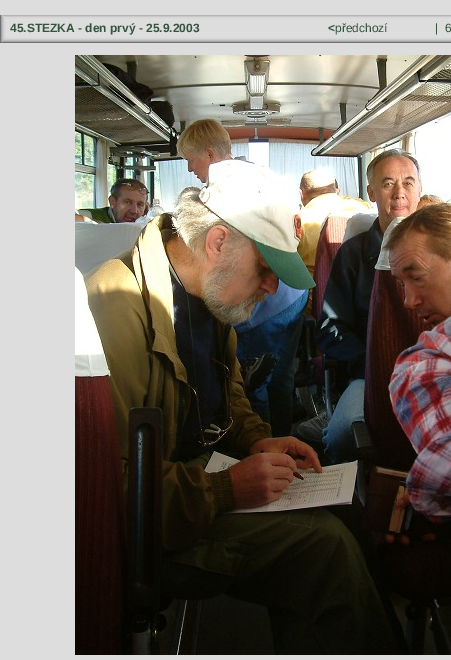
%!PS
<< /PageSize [451 660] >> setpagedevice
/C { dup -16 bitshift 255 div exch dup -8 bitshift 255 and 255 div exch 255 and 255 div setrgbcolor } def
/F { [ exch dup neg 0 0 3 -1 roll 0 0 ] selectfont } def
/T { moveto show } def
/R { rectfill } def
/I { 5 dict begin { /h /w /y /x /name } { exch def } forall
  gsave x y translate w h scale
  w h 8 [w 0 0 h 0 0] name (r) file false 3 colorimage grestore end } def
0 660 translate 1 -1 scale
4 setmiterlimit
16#DDDDDD C
0 0 451 660 R
(1.rgb) 0 15 451 28 I
/LiberationSans-Bold 12 F
16#35543D C
(45.STEZKA - den prvý - 25.9.2003) 10 32 T
(<) 328 32 T
/LiberationSans-Regular 12 F
(předchozí) 335 32 T
(|  6) 435 32 T
(2.rgb) 75 55 376 600 I
showpage
